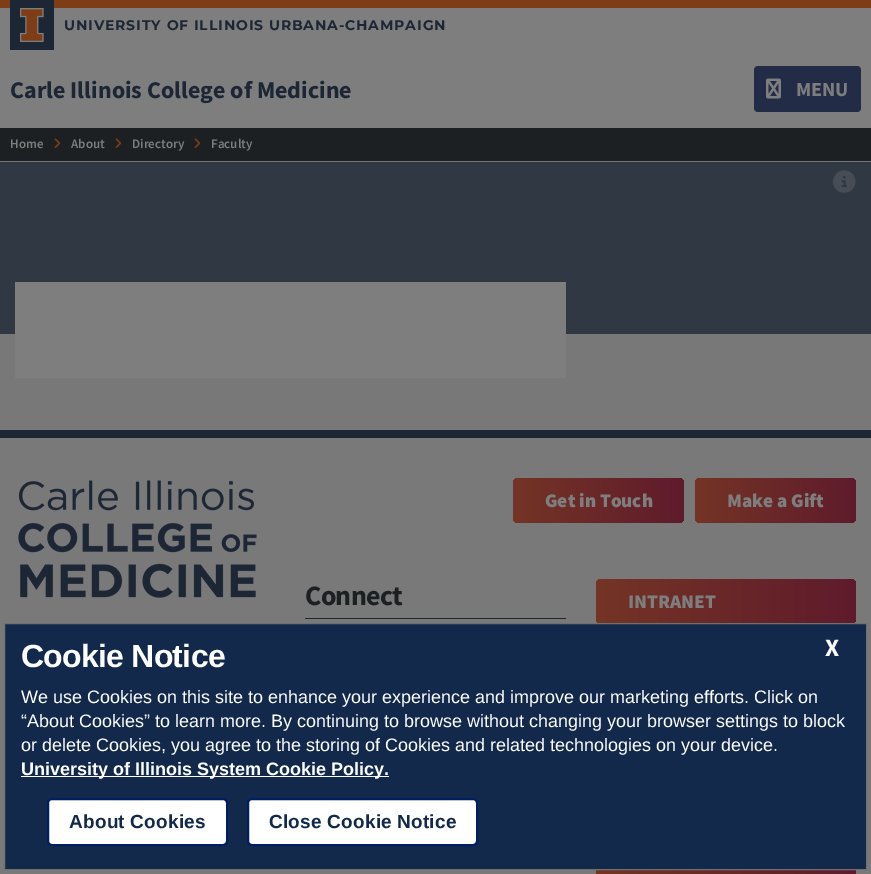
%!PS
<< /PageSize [871 874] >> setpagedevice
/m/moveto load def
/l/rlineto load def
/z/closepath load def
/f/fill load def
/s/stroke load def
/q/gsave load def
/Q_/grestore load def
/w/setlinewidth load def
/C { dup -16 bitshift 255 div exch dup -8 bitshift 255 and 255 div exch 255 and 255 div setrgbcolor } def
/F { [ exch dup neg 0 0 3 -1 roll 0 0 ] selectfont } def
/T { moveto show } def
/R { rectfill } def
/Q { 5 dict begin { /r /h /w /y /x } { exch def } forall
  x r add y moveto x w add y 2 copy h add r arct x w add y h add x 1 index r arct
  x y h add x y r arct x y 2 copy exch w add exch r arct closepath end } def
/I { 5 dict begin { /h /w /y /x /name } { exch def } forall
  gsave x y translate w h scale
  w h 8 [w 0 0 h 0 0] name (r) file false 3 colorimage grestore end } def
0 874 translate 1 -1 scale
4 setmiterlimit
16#7E7E7E C
0 0 871 874 R
16#7E3C17 C
0 0 871 8 R
16#747576 C
0 161 871 1 R
16#1D2634 C
10 0 44 50 R
(1.rgb) 20 8 24 34 I
/Montserrat-Bold 14 F
64 30 m .9 0 (UNIVERSITY OF ILLINOIS URBANA-CHAMPAIGN) ashow
/SourceSansPro-Bold 24 F
(Carle Illinois College of Medicine) 10 98 T
16#222C46 C
754 66 107 46 4 Q f
(2.rgb) 766 78 15 21 I
/SourceSansPro-Bold 20 F
16#7E7E7E C
(MENU) 796 96 T
16#1D2023 C
0 128 871 33 R
/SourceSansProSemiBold-SemiBold 13 F
16#7E7E7E C
(Home) 10 148 T
(3.rgb) 54 138 7 10 I
(About) 71 148 T
(3.rgb) 115 138 7 10 I
(Directory) 132 148 T
(3.rgb) 194 138 7 10 I
(Faculty) 211 148 T
16#303843 C
0 162 871 172 R
(4.rgb) 833 170 23 23 I
16#787878 C
0 334 871 96 R
16#7E7E7E C
15 282 551 96 R
16#797979 C
0 438 871 436 R
16#1D2634 C
0 430 871 8 R
(5.rgb) 18 480 239 118 I
q 513 478 171 45 5 Q clip newpath
<< /ShadingType 2 /ColorSpace /DeviceRGB /Coords [513 501 855 501] /Extend [true true] /Function << /FunctionType 3 /Domain [0 1] /Functions [<< /FunctionType 2 /Domain [0 1] /C0 [.455 .204 .145] /C1 [.373 .106 .173] /N 1 >> << /FunctionType 2 /Domain [0 1] /C0 [.373 .106 .173] /C1 [.455 .204 .145] /N 1 >>] /Bounds [.5] /Encode [0 1 0 1] >> >> shfill Q_
/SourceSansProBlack-Black 19.25 F
16#7E7E7E C
(Get in Touch) 545 507 T
q 695 478 161 45 5 Q clip newpath
<< /ShadingType 2 /ColorSpace /DeviceRGB /Coords [695 501 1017 501] /Extend [true true] /Function << /FunctionType 3 /Domain [0 1] /Functions [<< /FunctionType 2 /Domain [0 1] /C0 [.455 .204 .145] /C1 [.373 .106 .173] /N 1 >> << /FunctionType 2 /Domain [0 1] /C0 [.373 .106 .173] /C1 [.455 .204 .145] /N 1 >>] /Bounds [.5] /Encode [0 1 0 1] >> >> shfill Q_
(Make a Gift) 727 507 T
16#1D2634 C
305 618 261 1 R
/SourceSansPro-Bold 28 F
16#1D2023 C
305 605 m -.75 0 (Connect) ashow
q 596 579 260 45 5 Q clip newpath
<< /ShadingType 2 /ColorSpace /DeviceRGB /Coords [596 602 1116 602] /Extend [true true] /Function << /FunctionType 3 /Domain [0 1] /Functions [<< /FunctionType 2 /Domain [0 1] /C0 [.455 .204 .145] /C1 [.373 .106 .173] /N 1 >> << /FunctionType 2 /Domain [0 1] /C0 [.373 .106 .173] /C1 [.455 .204 .145] /N 1 >>] /Bounds [.5] /Encode [0 1 0 1] >> >> shfill Q_
/SourceSansProBlack-Black 19.25 F
16#7E7E7E C
(INTRANET) 628 608 T
q 596 870 m 260 0 l 0 4 l -260 0 l z clip newpath
<< /ShadingType 2 /ColorSpace /DeviceRGB /Coords [596 859 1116 859] /Extend [true true] /Function << /FunctionType 3 /Domain [0 1] /Functions [<< /FunctionType 2 /Domain [0 1] /C0 [.455 .204 .145] /C1 [.373 .106 .173] /N 1 >> << /FunctionType 2 /Domain [0 1] /C0 [.373 .106 .173] /C1 [.455 .204 .145] /N 1 >>] /Bounds [.5] /Encode [0 1 0 1] >> >> shfill Q_
16#13294B C
4.5 623.5 m 862 0 l 0 246 l -862 0 l z q f Q_
16#707070 C
s
/LiberationSans-Bold 32 F
16#FFFFFF C
21 667 m -.75 0 (Cookie Notice) ashow
/SourceSansPro-Bold 25 F
(X) 825 656 T
/LiberationSans-Regular 18 F
(We use Cookies on this site to enhance your experience and improve our marketing efforts. Click on) 21 703 T
(“About Cookies” to learn more. By continuing to browse without changing your browser settings to block) 21 727 T
(or delete Cookies, you agree to the storing of Cookies and related technologies on your device.) 21 751 T
21 776 368 1 R
/LiberationSans-Bold 18 F
(University of Illinois System Cookie Policy.) 21 775 T
48 799 179 46 4 Q q f Q_
16#001E62 C
2 w
s
/LiberationSans-Bold 19 F
16#13294B C
69 828 m .2 0 (About Cookies) ashow
16#FFFFFF C
248 799 229 46 4 Q q f Q_
16#001E62 C
s
16#13294B C
269 828 m .2 0 (Close Cookie Notice) ashow
showpage
